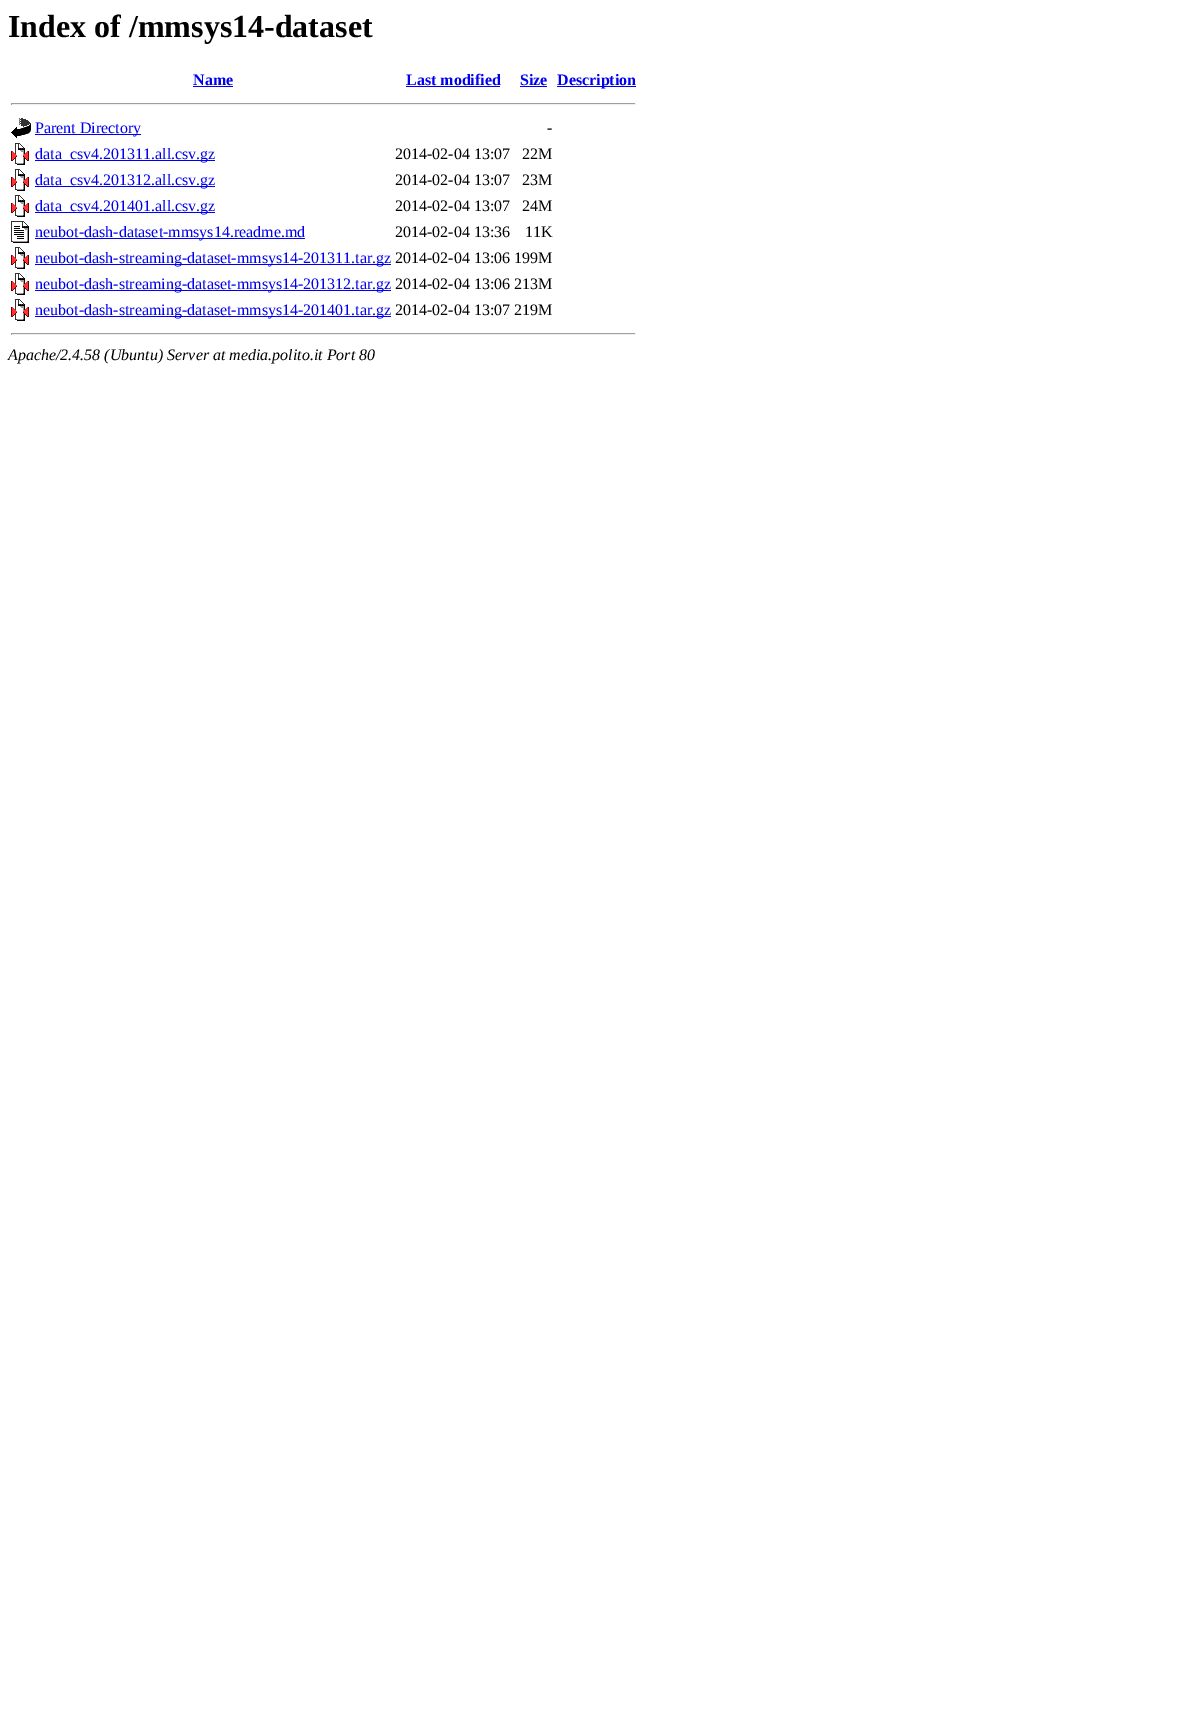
%!PS
<< /PageSize [1199 1716] >> setpagedevice
/C { dup -16 bitshift 255 div exch dup -8 bitshift 255 and 255 div exch 255 and 255 div setrgbcolor } def
/F { [ exch dup neg 0 0 3 -1 roll 0 0 ] selectfont } def
/T { moveto show } def
/R { rectfill } def
/I { 5 dict begin { /h /w /y /x /name } { exch def } forall
  gsave x y translate w h scale
  w h 8 [w 0 0 h 0 0] name (r) file false 3 colorimage grestore end } def
0 1716 translate 1 -1 scale
4 setmiterlimit
16#FFFFFF C
0 0 1199 1716 R
/LiberationSerif-Bold 32 F
16#000000 C
(Index of /mmsys14-dataset) 8 37 T
/LiberationSerif-Bold 16 F
16#0000EE C
(Name) 193 85 T
193 86 40 1 R
(Last modified) 406 85 T
406 86 94 1 R
(Size) 520 85 T
520 86 27 1 R
557 86 79 1 R
(Description) 557 85 T
16#9F9F9F C
11 103 625 1 R
16#EEEEEE C
635 103 1 2 R
11 104 625 1 R
16#9F9F9F C
11 103 1 2 R
(1.rgb) 11 118 20 20 I
16#0000EE C
35 134 106 1 R
/LiberationSerif-Regular 16 F
(Parent Directory) 35 133 T
16#000000 C
(-) 547 133 T
(2.rgb) 11 143 18 22 I
16#0000EE C
35 160 180 1 R
(data_csv4.201311.all.csv.gz) 35 159 T
16#000000 C
(2014-02-04 13:07) 395 159 T
(22M) 522 159 T
(2.rgb) 11 169 18 22 I
16#0000EE C
35 186 180 1 R
(data_csv4.201312.all.csv.gz) 35 185 T
16#000000 C
(2014-02-04 13:07) 395 185 T
(23M) 522 185 T
(2.rgb) 11 195 18 22 I
16#0000EE C
35 212 180 1 R
(data_csv4.201401.all.csv.gz) 35 211 T
16#000000 C
(2014-02-04 13:07) 395 211 T
(24M) 522 211 T
(3.rgb) 11 221 18 22 I
16#0000EE C
35 238 270 1 R
(neubot-dash-dataset-mmsys14.readme.md) 35 237 T
16#000000 C
(2014-02-04 13:36) 395 237 T
(11K) 525 237 T
(2.rgb) 11 247 18 22 I
16#0000EE C
35 264 356 1 R
(neubot-dash-streaming-dataset-mmsys14-201311.tar.gz) 35 263 T
16#000000 C
(2014-02-04 13:06 199M) 395 263 T
(2.rgb) 11 273 18 22 I
16#0000EE C
35 290 356 1 R
(neubot-dash-streaming-dataset-mmsys14-201312.tar.gz) 35 289 T
16#000000 C
(2014-02-04 13:06 213M) 395 289 T
(2.rgb) 11 299 18 22 I
16#0000EE C
35 316 356 1 R
(neubot-dash-streaming-dataset-mmsys14-201401.tar.gz) 35 315 T
16#000000 C
(2014-02-04 13:07 219M) 395 315 T
16#9F9F9F C
11 333 625 1 R
16#EEEEEE C
635 333 1 2 R
11 334 625 1 R
16#9F9F9F C
11 333 1 2 R
/LiberationSerif-Italic 16 F
16#000000 C
(Apache/2.4.58 \(Ubuntu\) Server at media.polito.it Port 80) 8 360 T
showpage
